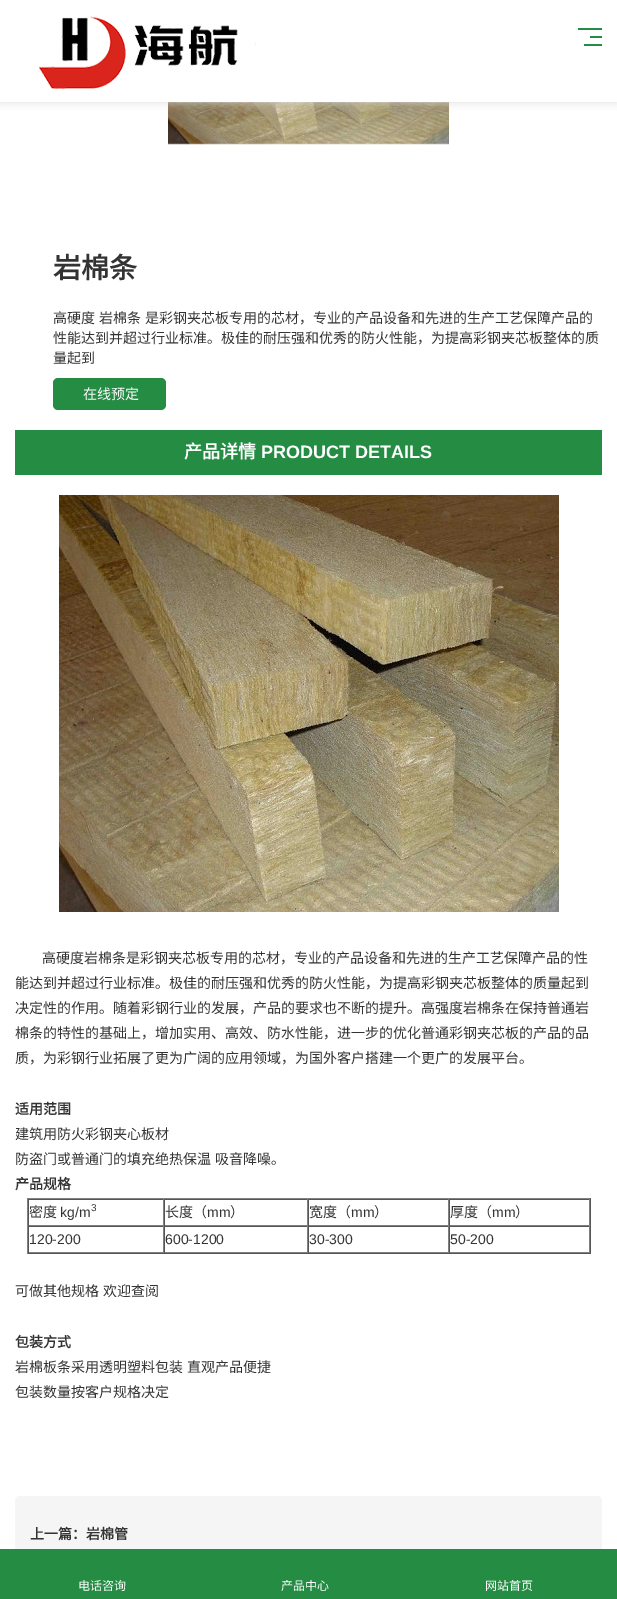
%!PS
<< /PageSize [617 1599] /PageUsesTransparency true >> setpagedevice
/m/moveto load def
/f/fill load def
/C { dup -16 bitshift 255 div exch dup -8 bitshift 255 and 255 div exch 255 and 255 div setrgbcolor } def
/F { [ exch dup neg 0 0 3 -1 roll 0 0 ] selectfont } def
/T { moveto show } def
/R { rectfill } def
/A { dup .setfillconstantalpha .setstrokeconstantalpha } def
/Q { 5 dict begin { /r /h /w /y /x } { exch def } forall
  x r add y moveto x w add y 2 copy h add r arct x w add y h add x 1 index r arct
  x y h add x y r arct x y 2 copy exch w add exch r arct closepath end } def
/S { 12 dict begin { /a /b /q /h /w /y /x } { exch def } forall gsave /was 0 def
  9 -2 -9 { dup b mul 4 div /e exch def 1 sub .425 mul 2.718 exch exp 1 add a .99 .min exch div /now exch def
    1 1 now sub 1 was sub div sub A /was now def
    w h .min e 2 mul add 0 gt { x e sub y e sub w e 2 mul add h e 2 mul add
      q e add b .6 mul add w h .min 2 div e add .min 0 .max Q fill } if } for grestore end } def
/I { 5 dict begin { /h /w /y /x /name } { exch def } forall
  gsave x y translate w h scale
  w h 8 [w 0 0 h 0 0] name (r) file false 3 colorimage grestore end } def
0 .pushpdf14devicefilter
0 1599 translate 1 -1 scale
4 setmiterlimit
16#FFFFFF C
0 0 617 1599 R
(2.rgb) 168 102 281 43 I
16#DDDDDD C
0 0 617 102 0 5 1 S
16#FFFFFF C
0 0 617 102 R
(1.rgb) 38 16 218 73 I
16#258C44 C
578 28 24 2 R
590 36 12 2 R
584 44 18 2 R
/NotoSansCJKSC-Bold 28 F
16#333333 C
(岩棉条) 53 278 T
/NotoSansCJKSC-Regular 14 F
53 323 m 1 0 32 (高硬度 岩棉条 是彩钢夹芯板专用的芯材，专业的产品设备和先进的生产工艺保障产品的) widthshow
(性能达到并超过行业标准。极佳的耐压强和优秀的防火性能，为提高彩钢夹芯板整体的质) 53 343 T
(量起到) 53 363 T
16#258C44 C
53 378 113 32 5 Q f
16#FFFFFF C
(在线预定) 83 399 T
16#258C44 C
15 430 587 45 R
/NotoSansCJKSC-Bold 18 F
16#FFFFFF C
(产品详情) 184 458 T
/LiberationSans-Bold 18 F
(PRODUCT DETAILS) 261 458 T
(3.rgb) 59 495 500 417 I
/NotoSansCJKSC-Regular 14 F
16#333333 C
(高硬度岩棉条是彩钢夹芯板专用的芯材，专业的产品设备和先进的生产工艺保障产品的性) 42 963 T
(能达到并超过行业标准。极佳的耐压强和优秀的防火性能，为提高彩钢夹芯板整体的质量起到) 15 988 T
(决定性的作用。随着彩钢行业的发展，产品的要求也不断的提升。高强度岩棉条在保持普通岩) 15 1013 T
(棉条的特性的基础上，增加实用、高效、防水性能，进一步的优化普通彩钢夹芯板的产品的品) 15 1038 T
(质，为彩钢行业拓展了更为广阔的应用领域，为国外客户搭建一个更广的发展平台。) 15 1063 T
/NotoSansCJKSC-Bold 14 F
(适用范围) 15 1114 T
/NotoSansCJKSC-Regular 14 F
(建筑用防火彩钢夹心板材) 15 1139 T
15 1164 m 1 0 32 (防盗门或普通门的填充绝热保温 吸音降噪。) widthshow
/NotoSansCJKSC-Bold 14 F
(产品规格) 15 1189 T
16#808080 C
27 1198 564 1 R
16#555555 C
590 1198 1 56 R
27 1253 564 1 R
16#808080 C
27 1198 1 56 R
16#555555 C
28 1199 562 1 R
16#808080 C
163 1199 1 27 R
28 1225 136 1 R
16#555555 C
28 1199 1 27 R
/NotoSansCJKSC-Regular 14 F
16#333333 C
(密度) 29 1217 T
/LiberationSans-Regular 14 F
(kg/m) 60 1217 T
/LiberationSans-Regular 10 F
(3) 91 1211 T
16#808080 C
307 1199 1 27 R
164 1225 144 1 R
16#555555 C
164 1199 1 27 R
/NotoSansCJKSC-Regular 14 F
16#333333 C
(长度（) 165 1217 T
/LiberationSans-Regular 14 F
(mm) 207 1217 T
/NotoSansCJKSC-Regular 14 F
(）) 230 1217 T
16#808080 C
448 1199 1 27 R
308 1225 141 1 R
16#555555 C
308 1199 1 27 R
16#333333 C
(宽度（) 309 1217 T
/LiberationSans-Regular 14 F
(mm) 351 1217 T
/NotoSansCJKSC-Regular 14 F
(）) 374 1217 T
16#808080 C
589 1199 1 27 R
449 1225 141 1 R
16#555555 C
449 1199 1 27 R
16#333333 C
(厚度（) 450 1217 T
/LiberationSans-Regular 14 F
(mm) 492 1217 T
/NotoSansCJKSC-Regular 14 F
(）) 515 1217 T
16#555555 C
28 1226 562 1 R
16#808080 C
163 1226 1 27 R
28 1252 136 1 R
16#555555 C
28 1226 1 27 R
/LiberationSans-Regular 14 F
16#333333 C
(120-200) 29 1244 T
16#808080 C
307 1226 1 27 R
164 1252 144 1 R
16#555555 C
164 1226 1 27 R
16#333333 C
(600-1200) 165 1244 T
16#808080 C
448 1226 1 27 R
308 1252 141 1 R
16#555555 C
308 1226 1 27 R
16#333333 C
(30-300) 309 1244 T
16#808080 C
589 1226 1 27 R
449 1252 141 1 R
16#555555 C
449 1226 1 27 R
16#333333 C
(50-200) 450 1244 T
/NotoSansCJKSC-Regular 14 F
15 1296 m 1 0 32 (可做其他规格 欢迎查阅) widthshow
/NotoSansCJKSC-Bold 14 F
(包装方式) 15 1347 T
/NotoSansCJKSC-Regular 14 F
15 1372 m 1 0 32 (岩棉板条采用透明塑料包装 直观产品便捷) widthshow
(包装数量按客户规格决定) 15 1397 T
16#F5F5F5 C
15 1496 587 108 5 Q f
/NotoSansCJKSC-Bold 14 F
16#333333 C
(上一篇：岩棉管) 30 1539 T
16#258C44 C
0 1549 617 50 R
/NotoSansCJKSC-Regular 12 F
16#FFFFFF C
(电话咨询) 78 1590 T
(产品中心) 281 1590 T
(网站首页) 485 1590 T
.poppdf14devicefilter showpage
